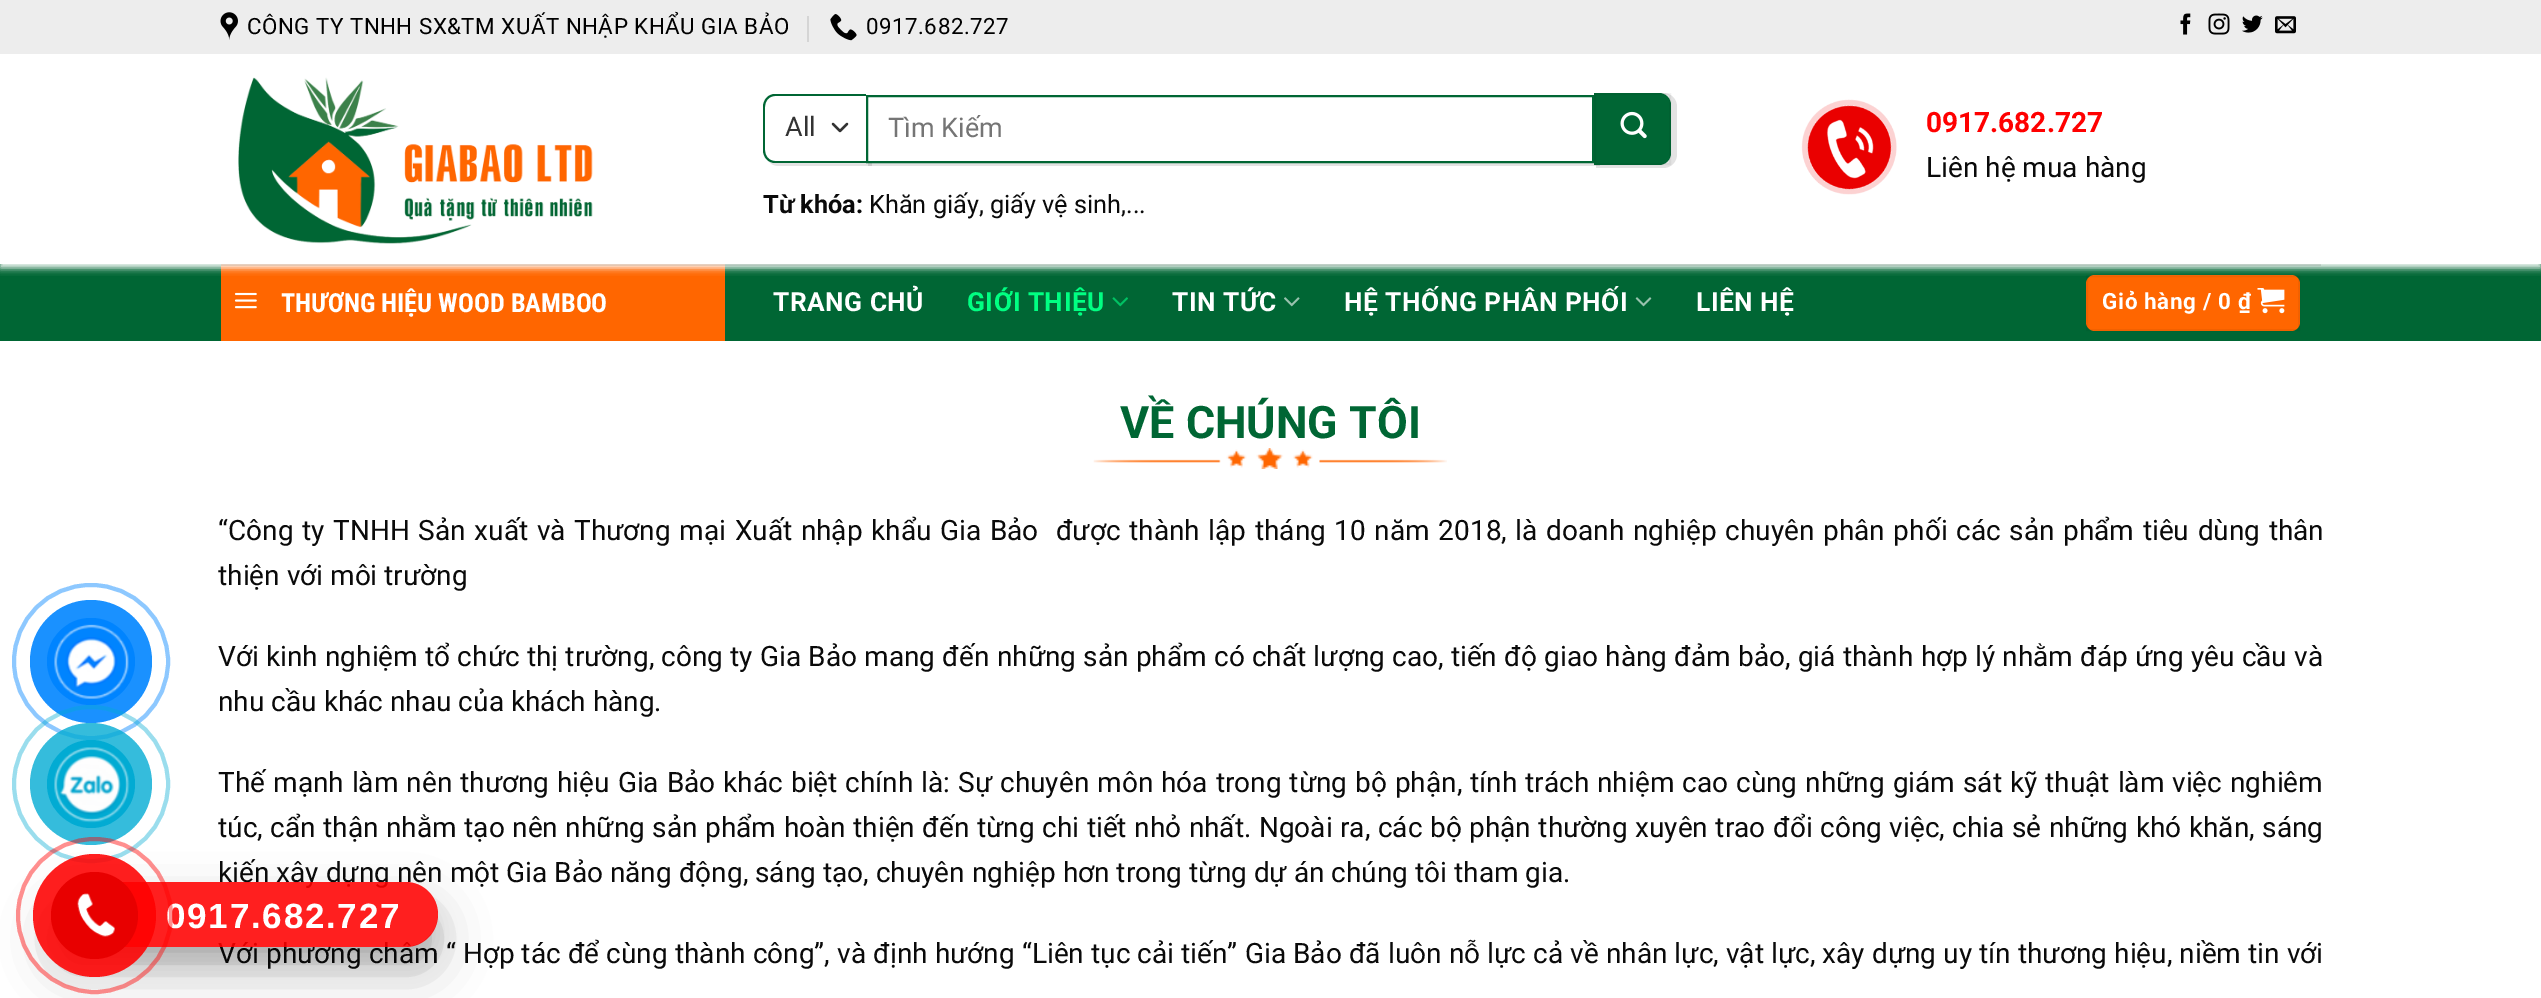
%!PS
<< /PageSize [2541 998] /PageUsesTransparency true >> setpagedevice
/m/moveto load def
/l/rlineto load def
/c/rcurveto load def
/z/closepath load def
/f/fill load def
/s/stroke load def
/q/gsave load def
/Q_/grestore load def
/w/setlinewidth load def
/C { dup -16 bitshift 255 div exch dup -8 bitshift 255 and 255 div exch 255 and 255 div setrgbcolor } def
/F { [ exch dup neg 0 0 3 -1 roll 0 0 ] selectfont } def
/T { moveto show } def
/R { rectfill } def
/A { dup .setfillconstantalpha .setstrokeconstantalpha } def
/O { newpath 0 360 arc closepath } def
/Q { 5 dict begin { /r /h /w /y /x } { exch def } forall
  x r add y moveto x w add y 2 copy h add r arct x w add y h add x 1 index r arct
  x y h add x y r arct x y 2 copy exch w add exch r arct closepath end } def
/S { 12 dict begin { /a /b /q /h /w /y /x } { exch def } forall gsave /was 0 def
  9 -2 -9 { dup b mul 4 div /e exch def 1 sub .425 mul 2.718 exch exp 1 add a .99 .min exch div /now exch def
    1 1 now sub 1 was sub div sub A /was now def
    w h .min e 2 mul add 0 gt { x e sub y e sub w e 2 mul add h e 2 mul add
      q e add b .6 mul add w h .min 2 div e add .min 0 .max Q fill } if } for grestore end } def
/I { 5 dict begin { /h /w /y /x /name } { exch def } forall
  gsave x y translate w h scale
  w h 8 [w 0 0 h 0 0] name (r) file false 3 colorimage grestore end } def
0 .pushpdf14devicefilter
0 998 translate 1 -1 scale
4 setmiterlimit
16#FFFFFF C
0 0 2541 998 R
16#006634 C
0 264 2541 77 R
16#FF6600 C
221 264 504 77 R
2086 275 214 56 9 Q f
0.05 A
16#000000 C
2 w
2087 276 212 54 rectstroke
q
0 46 m 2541 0 l 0 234 l -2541 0 l z 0 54 m 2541 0 l 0 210 l -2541 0 l z eoclip newpath
1 A
16#FFFFFF C
0 58 2541 210 0 3.5 1 S
Q_
1 A
16#EDEDED C
0 0 2541 54 R
(1.rgb) 220 12 18 28 I
/Roboto-Regular 22.4 F
16#000000 C
247 34 m .45 0 (CÔNG TY TNHH SX&TM XUẤT NHẬP KHẨU GIA BẢO) ashow
16#D5D5D5 C
807 16 2 26 R
(2.rgb) 830 14 27 27 I
16#000000 C
866 34 m .45 0 (0917.682.727) ashow
(3.rgb) 2180 13 11 22 I
(4.rgb) 2208 13 22 22 I
(5.rgb) 2242 15 21 18 I
(6.rgb) 2275 16 21 18 I
(7.rgb) 238 77 355 167 I
16#E3E3E3 C
768 160 m 2 4 6 6 11 6 c 93 0 l 0 -71 l -6 0 l 0 68 l -91 0 l -3 0 -5 -1 -7 -3 c z f
16#FFFFFF C
775 95 m 91 0 l 0 68 l -91 0 l -6.5 0 -12 -5.5 -12 -12 c 0 -44 l 0 -6.5 5.5 -12 12 -12 c z f
16#333333 C
2.3 w
1 setlinecap
1 setlinejoin
833 124 m 7 7 l 7 -7 l s
16#006634 C
775 94 m 91 0 l 0 69 l -91 0 l -7 0 -12 -6 -12 -13 c 0 -43 l 0 -7 5 -13 12 -13 c z 775 96 m 91 0 l 0 65 l -91 0 l -6 0 -10 -5 -10 -11 c 0 -43 l 0 -6 4 -11 10 -11 c z eofill
/Roboto-Regular 27 F
16#333333 C
(All) 785 136 T
0.11 A
16#000000 C
868 163 m 0 3 l 732 0 l 0 -71 l -6 0 l 0 68 l z f
1 A
16#FFFFFF C
868 97 4 64 R
16#006634 C
2 w
0 setlinecap
0 setlinejoin
867 96 726 66 rectstroke
16#757575 C
(Tìm Kiếm) 888 137 T
0.11 A
16#000000 C
1596 164 m 0 4 l 67 0 l 8 0 14 -6 14 -14 c 0 -47 l 0 -8 -6 -14 -14 -14 c -2 0 l 6 1 10 6 10 12 c 0 47 l 0 7 -5 12 -12 12 c z f
1 A
16#006634 C
1594 93 m 65 0 l 6.5 0 12 5.5 12 12 c 0 48 l 0 6.5 -5.5 12 -12 12 c -65 0 l z f
0.05 A
16#000000 C
1595 94 75 70 rectstroke
1 A
(8.rgb) 1620 111 27 28 I
/Roboto-Bold 25.25 F
16#0A0A0A C
(Từ khóa:) 763 213 T
/Roboto-Regular 25.25 F
(Khăn giấy, giấy vệ sinh,...) 869 213 T
(9.rgb) 1801 99 96 96 I
/Roboto-Bold 28 F
16#FF0000 C
(0917.682.727) 1926 132 T
/Roboto-Regular 28 F
16#0A0A0A C
(Liên hệ mua hàng) 1926 177 T
0.1 A
221 264 2100 2 R
1 A
(10.rgb) 234 292 23 17 I
/RobotoCondensed-Bold 26.25 F
16#FFFFFF C
(THƯƠNG HIỆU WOOD BAMBOO) 281 312 T
/Roboto-Bold 26.25 F
773 311 m .5 0 (TRANG CHỦ) ashow
16#00FF82 C
967 311 m .5 0 (GIỚI THIỆU) ashow
(11.rgb) 1112 297 16 10 I
16#FFFFFF C
1172 311 m .5 0 (TIN TỨC) ashow
(12.rgb) 1284 297 16 10 I
1344 311 m .5 0 (HỆ THỐNG PHÂN PHỐI) ashow
(13.rgb) 1635 297 17 10 I
1696 311 m .5 0 (LIÊN HỆ) ashow
/Roboto-Bold 22.4 F
2102 309 m .7 0 (Giỏ hàng / 0 ₫) ashow
(14.rgb) 2257 288 28 26 I
/Roboto-Bold 44.75 F
16#006634 C
(VỀ CHÚNG TÔI) 1120 438 T
(15.rgb) 1093 448 354 21 I
/Roboto-Regular 28 F
16#0A0A0A C
218 540 m 1.7 0 32 (“Công ty TNHH Sản xuất và Thương mại Xuất nhập khẩu Gia Bảo  được thành lập tháng 10 năm 2018, là doanh nghiệp chuyên phân phối các sản phẩm tiêu dùng thân) widthshow
(thiện với môi trường) 218 585 T
218 666 m .3 0 32 (Với kinh nghiệm tổ chức thị trường, công ty Gia Bảo mang đến những sản phẩm có chất lượng cao, tiến độ giao hàng đảm bảo, giá thành hợp lý nhằm đáp ứng yêu cầu và) widthshow
(nhu cầu khác nhau của khách hàng.) 218 711 T
218 792 m 1.05 0 32 (Thế mạnh làm nên thương hiệu Gia Bảo khác biệt chính là: Sự chuyên môn hóa trong từng bộ phận, tính trách nhiệm cao cùng những giám sát kỹ thuật làm việc nghiêm) widthshow
218 837 m .6 0 32 (túc, cẩn thận nhằm tạo nên những sản phẩm hoàn thiện đến từng chi tiết nhỏ nhất. Ngoài ra, các bộ phận thường xuyên trao đổi công việc, chia sẻ những khó khăn, sáng) widthshow
(kiến xây dựng nên một Gia Bảo năng động, sáng tạo, chuyên nghiệp hơn trong từng dự án chúng tôi tham gia.) 218 882 T
218 963 m .2 0 32 (Với phương châm “ Hợp tác để cùng thành công”, và định hướng “Liên tục cải tiến” Gia Bảo đã luôn nỗ lực cả về nhân lực, vật lực, xây dựng uy tín thương hiệu, niềm tin với) widthshow
16#8DC8FF C
4 w
14 585 154 153 76.5 Q s
16#1A91FF C
30 600 122 123 61 Q f
16#0084FF C
47 618 88 87 43.5 Q f
(16.rgb) 54 624 75 75 I
q
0 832 m 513 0 l 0 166 l -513 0 l z 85.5 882 m 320 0 l 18 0 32.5 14.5 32.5 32.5 c 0 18 -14.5 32.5 -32.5 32.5 c -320 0 l -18 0 -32.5 -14.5 -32.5 -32.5 c 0 -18 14.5 -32.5 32.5 -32.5 c z eoclip newpath
16#000000 C
53 907 385 64 32 24.5 .25 S
Q_
0.4 A
16#02ABD3 C
91 784 77 O s
0.8 A
91 784 61 O f
1 A
91 784 44 O f
(17.rgb) 54 747 76 76 I
q
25 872 m 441 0 l 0 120 l -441 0 l z 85.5 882 m 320 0 l 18 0 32.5 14.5 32.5 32.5 c 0 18 -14.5 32.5 -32.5 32.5 c -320 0 l -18 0 -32.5 -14.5 -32.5 -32.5 c 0 -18 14.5 -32.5 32.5 -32.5 c z eoclip newpath
16#000000 C
53 900 385 64 32 9 .1 S
Q_
0.88 A
16#FF0000 C
53 882 385 65 32.5 Q f
/LiberationSans-Bold 35 F
1 A
16#FFFFFF C
166 928 m 1.75 0 (0917.682.727) ashow
0.44 A
16#FF0000 C
94.5 915.5 76.5 O s
0.88 A
94.5 915.5 61.5 O f
1 A
16#E80000 C
94.5 915.5 43.5 O f
(18.rgb) 77 893 38 44 I
.poppdf14devicefilter showpage
